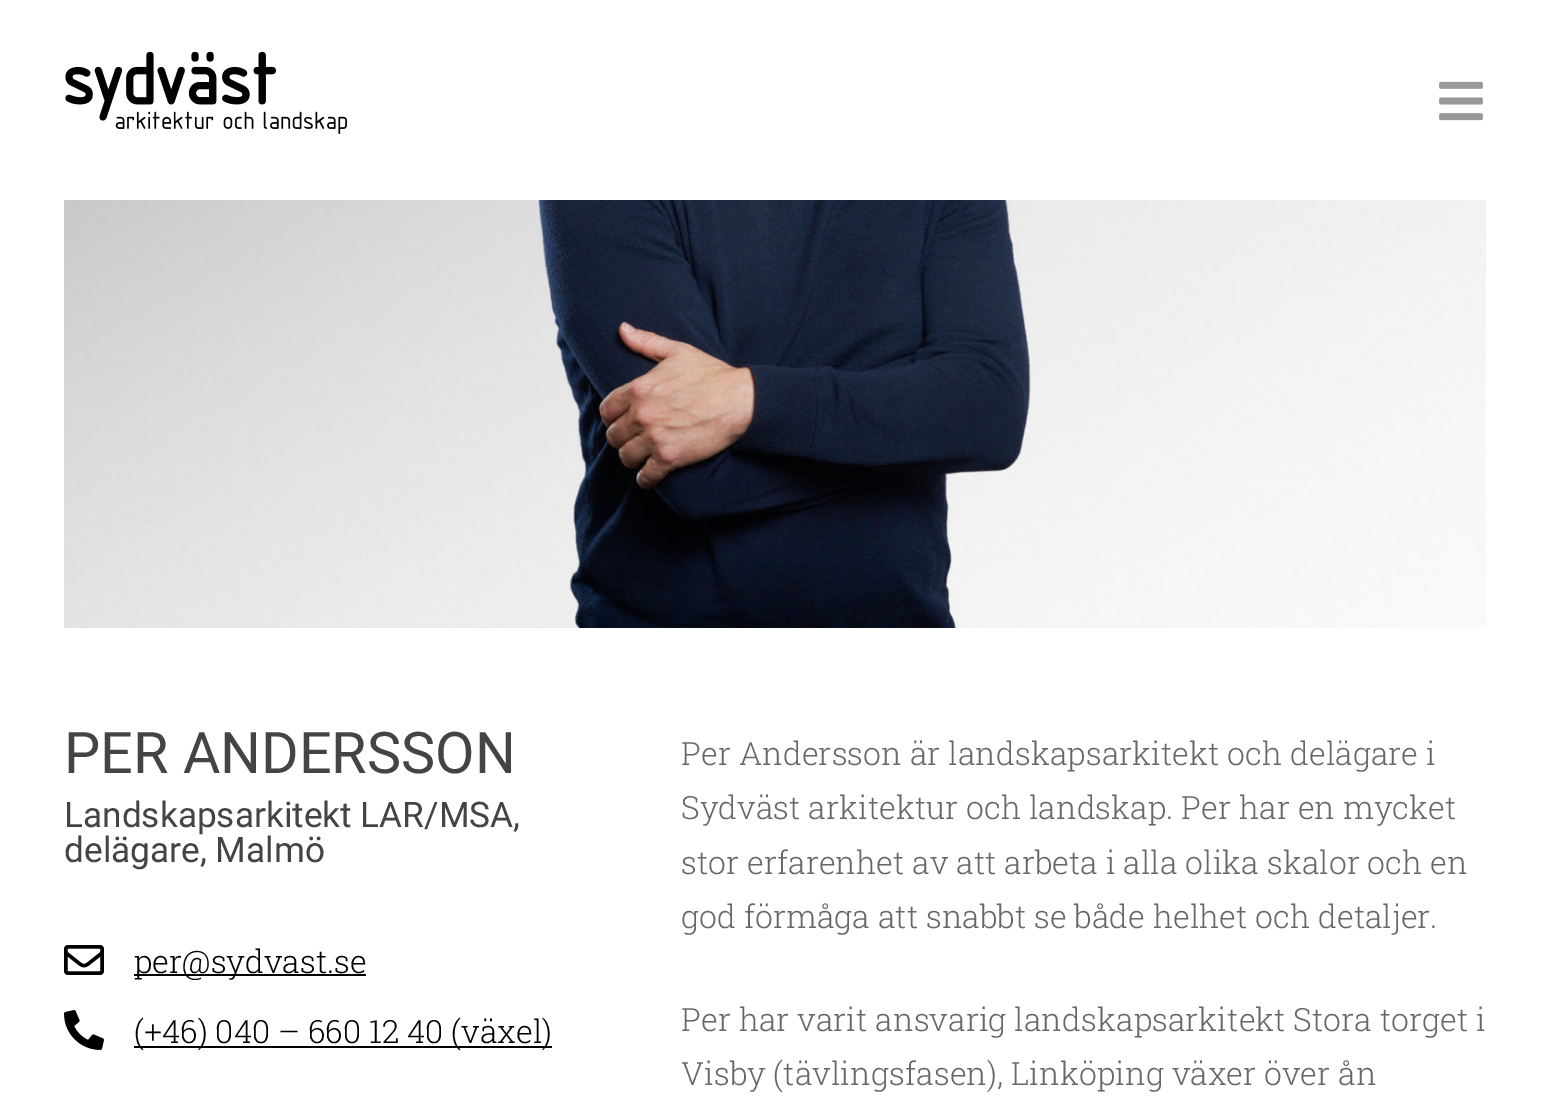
%!PS
<< /PageSize [1549 1113] >> setpagedevice
/C { dup -16 bitshift 255 div exch dup -8 bitshift 255 and 255 div exch 255 and 255 div setrgbcolor } def
/F { [ exch dup neg 0 0 3 -1 roll 0 0 ] selectfont } def
/T { moveto show } def
/R { rectfill } def
/I { 5 dict begin { /h /w /y /x /name } { exch def } forall
  gsave x y translate w h scale
  w h 8 [w 0 0 h 0 0] name (r) file false 3 colorimage grestore end } def
0 1113 translate 1 -1 scale
4 setmiterlimit
16#FFFFFF C
0 0 1549 1113 R
(1.rgb) 65 51 282 83 I
(2.rgb) 1439 81 44 40 I
(3.rgb) 64 200 1422 428 I
/Roboto-Regular 57.5 F
16#444444 C
(PER ANDERSSON) 64 773 T
/Roboto-Regular 35.25 F
(Landskapsarkitekt LAR/MSA,) 64 827 T
(delägare, Malmö) 64 862 T
(4.rgb) 64 945 40 30 I
16#000000 C
134 974 232 2 R
/RobotoSlab-Light 32 F
(per@sydvast.se) 134 973 T
(5.rgb) 64 1010 40 40 I
134 1046 418 2 R
(\(+46\) 040 – 660 12 40 \(växel\)) 134 1043 T
16#676767 C
(Per Andersson är landskapsarkitekt och delägare i) 681 765 T
(Sydväst arkitektur och landskap. Per har en mycket) 681 819 T
(stor erfarenhet av att arbeta i alla olika skalor och en) 681 874 T
(god förmåga att snabbt se både helhet och detaljer.) 681 928 T
(Per har varit ansvarig landskapsarkitekt Stora torget i) 681 1031 T
(Visby \(tävlingsfasen\), Linköping växer över ån) 681 1085 T
showpage
